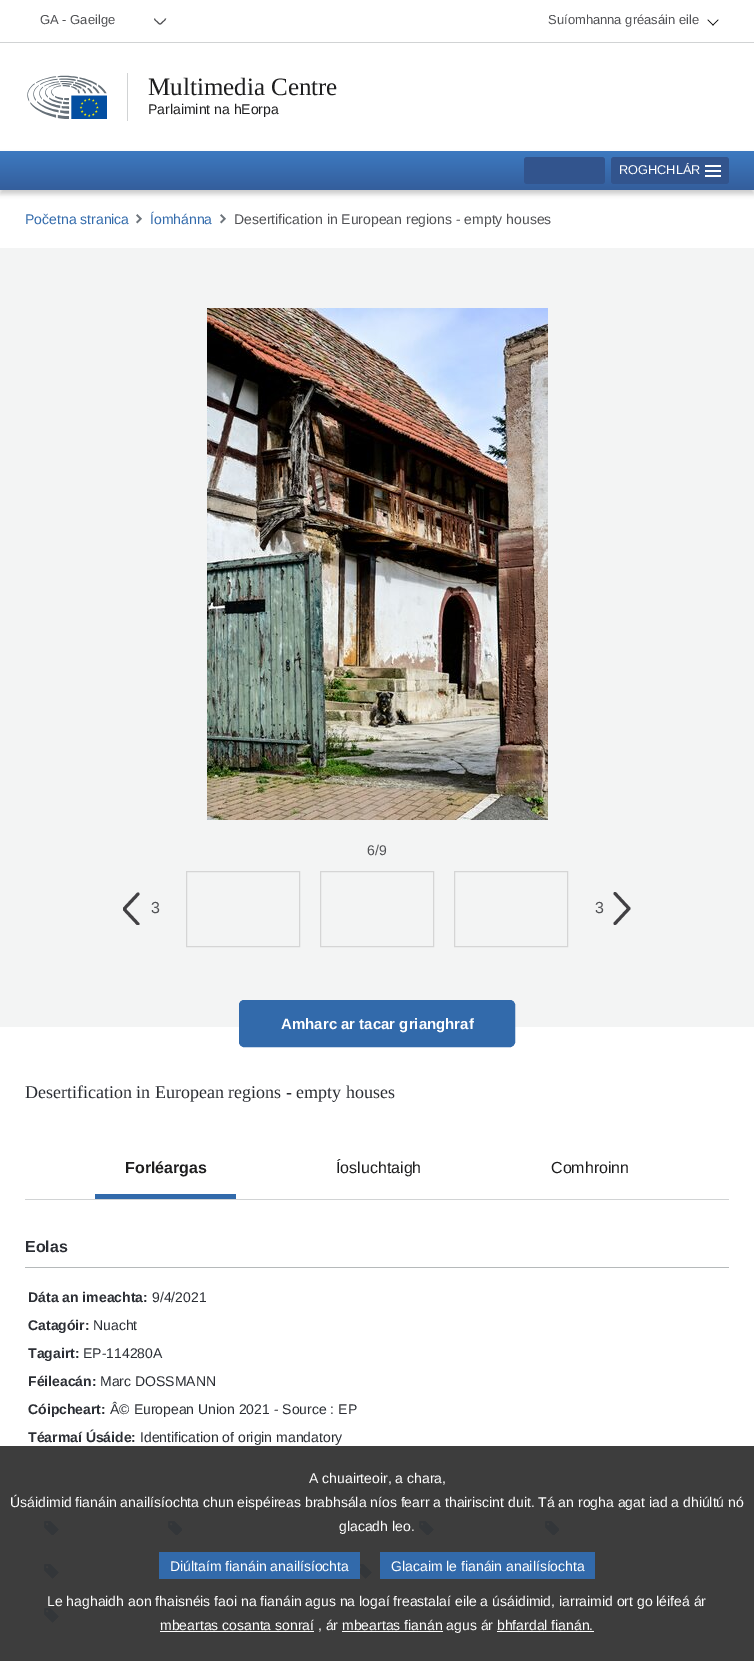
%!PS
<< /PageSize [754 1661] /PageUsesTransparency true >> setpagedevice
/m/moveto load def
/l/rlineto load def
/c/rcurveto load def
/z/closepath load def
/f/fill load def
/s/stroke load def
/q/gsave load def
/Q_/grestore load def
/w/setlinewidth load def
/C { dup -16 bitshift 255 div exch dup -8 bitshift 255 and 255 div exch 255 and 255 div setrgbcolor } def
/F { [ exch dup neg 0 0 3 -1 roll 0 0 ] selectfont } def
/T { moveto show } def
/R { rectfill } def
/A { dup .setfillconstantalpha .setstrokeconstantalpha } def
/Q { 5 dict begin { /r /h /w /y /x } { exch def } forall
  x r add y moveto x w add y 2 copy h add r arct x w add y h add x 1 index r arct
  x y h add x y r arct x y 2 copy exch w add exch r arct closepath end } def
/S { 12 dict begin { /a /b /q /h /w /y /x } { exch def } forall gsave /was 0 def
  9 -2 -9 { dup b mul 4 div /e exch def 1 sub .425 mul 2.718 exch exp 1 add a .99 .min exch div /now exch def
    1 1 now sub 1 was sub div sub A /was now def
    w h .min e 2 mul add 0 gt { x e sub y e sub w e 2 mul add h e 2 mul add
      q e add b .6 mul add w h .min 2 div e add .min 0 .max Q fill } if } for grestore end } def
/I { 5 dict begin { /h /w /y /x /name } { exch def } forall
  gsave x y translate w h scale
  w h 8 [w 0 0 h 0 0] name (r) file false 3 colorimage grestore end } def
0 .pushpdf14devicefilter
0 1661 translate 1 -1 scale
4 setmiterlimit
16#FFFFFF C
0 0 754 1661 R
16#3D3D3D C
0 1446 754 215 R
16#D1D3D4 C
0 42 754 1 R
/LiberationSans-Regular 13 F
16#505154 C
(GA - Gaeilge) 40 24 T
165.5 18.5 m 0 1 -1.5 2.5 -2.5 3 c -3 3.5 -3 3.5 -6 0 c -1 -.5 -2.5 -2 -2.5 -3 c s
(Suíomhanna gréasáin eile) 548 24 T
16#000000 C
718 19.5 m .5 .5 l -5.5 5.5 l -.5 -.5 l z f
708 19.5 m 5.5 5.5 l -.5 .5 l -5.5 -5.5 l z f
(1.rgb) 27 75 80 44 I
16#D1D3D4 C
127 73 1 48 R
/LiberationSerif-Regular 25 F
16#1E1E1F C
(Multimedia Centre) 148 95 T
/LiberationSans-Regular 14 F
(Parlaimint na hEorpa) 148 114 T
16#000000 C
0 155 754 39 0 2.5 .2 S
q 0 151 m 754 0 l 0 39 l -754 0 l z clip newpath
<< /ShadingType 2 /ColorSpace /DeviceRGB /Coords [377 151 377 190] /Extend [true true] /Function << /FunctionType 2 /Domain [0 1] /C0 [.239 .478 .757] /C1 [.204 .369 .612] /N 1 >> >> shfill Q_
16#32548D C
524 157 81 27 3 Q f
611 157 118 27 3 Q f
/LiberationSans-Regular 12.75 F
16#FFFFFF C
(ROGHCHLÁR) 619 174 T
705 165 16 2 R
705 170 16 2 R
705 175 16 2 R
/LiberationSans-Regular 14 F
16#326AAB C
(Početna stranica) 25 224 T
(2.rgb) 136 214 6 10 I
(Íomhánna) 150 224 T
(2.rgb) 220 214 6 10 I
16#505154 C
(Desertification in European regions - empty houses) 234 224 T
16#F3F4F4 C
0 248 754 779 R
(3.rgb) 207 308 341 512 I
16#505154 C
(6/9) 367 855 T
q
123 892 18 33 rectclip
16#414043 C
3 w
1 setlinecap
1 setlinejoin
138 894 m -14 15 l 14 15 l s
Q_
/LiberationSans-Regular 16 F
(3) 151 913 T
16#D5D5D5 C
186.5 871.5 113 75 rectstroke
320.5 871.5 113 75 rectstroke
454.5 871.5 113 75 rectstroke
16#505154 C
(3) 595 913 T
16#414043 C
3 w
1 setlinecap
1 setlinejoin
615 923.5 m 14 -15 l -14 -15 l s
16#326AAB C
239.5 1000.5 275 46 4.5 Q q f Q_
1 w
0 setlinecap
0 setlinejoin
s
/LiberationSans-Bold 15 F
16#FFFFFF C
(Amharc ar tacar grianghraf) 281 1029 T
/LiberationSerif-Regular 18 F
16#2B2E34 C
(Desertification in European regions - empty houses) 25 1098 T
16#D1D3D4 C
25 1199 704 1 R
/LiberationSans-Bold 16 F
16#1E1E1F C
(Forléargas) 125 1173 T
16#326AAB C
95 1194 141 5 R
/LiberationSans-Regular 16 F
16#1E1E1F C
(Íosluchtaigh) 336 1173 T
(Comhroinn) 551 1173 T
16#B5B9BA C
25 1267 704 1 R
/LiberationSans-Bold 16 F
16#2B2E34 C
(Eolas) 25 1252 T
/LiberationSans-Bold 14 F
(Dáta an imeachta:) 28 1302 T
/LiberationSans-Regular 14 F
(9/4/2021) 152 1302 T
/LiberationSans-Bold 14 F
(Catagóir:) 28 1330 T
/LiberationSans-Regular 14 F
(Nuacht) 93 1330 T
/LiberationSans-Bold 14 F
(Tagairt:) 28 1358 T
/LiberationSans-Regular 14 F
(EP-114280A) 83 1358 T
/LiberationSans-Bold 14 F
(Féileacán:) 28 1386 T
/LiberationSans-Regular 14 F
(Marc DOSSMANN) 100 1386 T
/LiberationSans-Bold 14 F
(Cóipcheart:) 28 1414 T
/LiberationSans-Regular 14 F
(Â© European Union 2021 - Source : EP) 110 1414 T
/LiberationSans-Bold 14 F
(Téarmaí Úsáide:) 28 1442 T
/LiberationSans-Regular 14 F
(Identification of origin mandatory) 140 1442 T
(4.rgb) 44 1521 15 14 I
(5.rgb) 168 1521 14 14 I
(4.rgb) 419 1521 15 14 I
(5.rgb) 545 1521 14 14 I
(6.rgb) 44 1564 15 15 I
(7.rgb) 360 1564 12 15 I
(6.rgb) 44 1608 15 15 I
16#FFFFFF C
(A chuairteoir, a chara,) 309 1483 T
(Úsáidimid fianáin anailísíochta chun eispéireas brabhsála níos fearr a thairiscint duit. Tá an rogha agat iad a dhiúltú nó) 10 1507 T
(glacadh leo.) 339 1531 T
16#326AAB C
159 1552 201 27 R
16#FFFFFF C
(Diúltaím fianáin anailísíochta) 170 1571 T
16#326AAB C
380 1552 215 27 R
16#FFFFFF C
(Glacaim le fianáin anailísíochta) 391 1571 T
(Le haghaidh aon fhaisnéis faoi na fianáin agus na logaí freastalaí eile a úsáidimid, iarraimid ort go léifeá ár) 47 1606 T
160 1631 154 1 R
(mbeartas cosanta sonraí , ár mbeartas fianán agus ár bhfardal fianán.) 160 1630 T
342 1631 101 1 R
497 1631 97 1 R
.poppdf14devicefilter showpage
